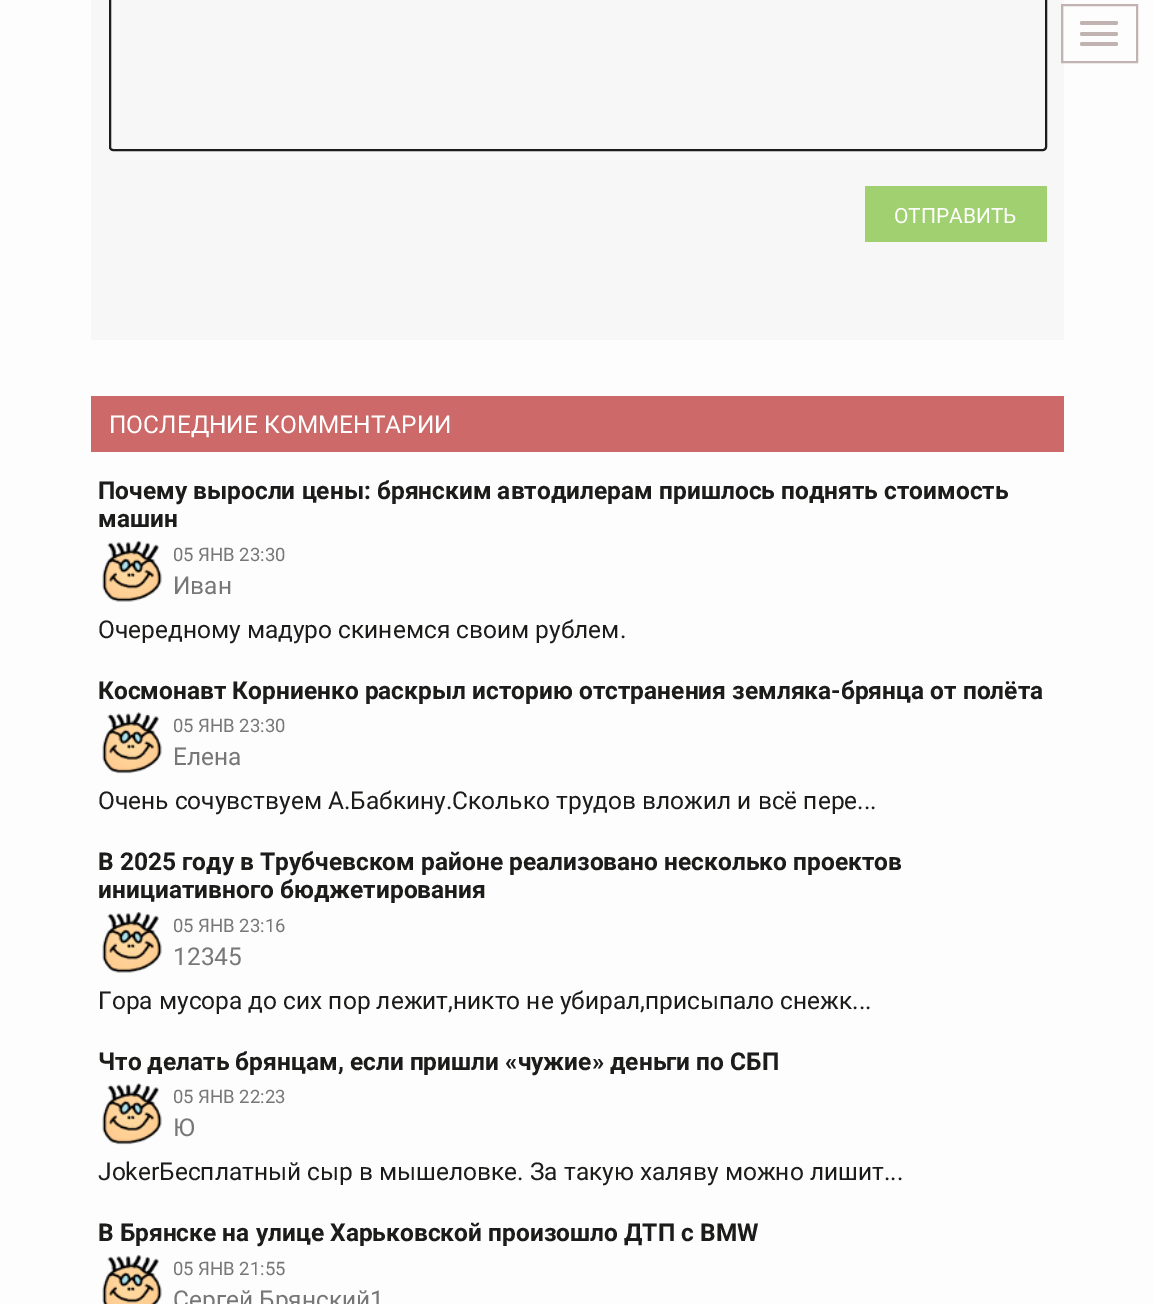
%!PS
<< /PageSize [1154 1304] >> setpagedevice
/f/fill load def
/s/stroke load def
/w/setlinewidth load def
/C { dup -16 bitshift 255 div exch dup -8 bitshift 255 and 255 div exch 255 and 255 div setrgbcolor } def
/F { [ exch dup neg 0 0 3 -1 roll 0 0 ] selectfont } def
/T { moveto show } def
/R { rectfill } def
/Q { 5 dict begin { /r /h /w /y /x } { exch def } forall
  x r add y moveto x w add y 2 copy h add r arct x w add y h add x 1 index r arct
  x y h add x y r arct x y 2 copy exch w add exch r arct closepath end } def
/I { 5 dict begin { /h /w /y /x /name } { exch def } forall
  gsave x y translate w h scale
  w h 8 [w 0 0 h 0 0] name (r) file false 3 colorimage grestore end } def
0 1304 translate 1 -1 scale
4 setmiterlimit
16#FDFDFD C
0 0 1154 1304 R
16#F7F7F7 C
91 0 973 340 R
16#C2B3B3 C
2 w
1062 5 75 57 rectstroke
1080 21 38 4 2 Q f
1080 32 38 4 2 Q f
1080 42 38 4 2 Q f
16#1C1C1B C
110 -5 936 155 3 Q s
16#A1D071 C
865 186 182 56 R
/Roboto-Regular 21 F
16#FFFFFF C
(ОТПРАВИТЬ) 894 223 T
16#CE6969 C
91 396 973 56 R
/Roboto-Regular 24.5 F
16#FFFFFF C
(ПОСЛЕДНИЕ КОММЕНТАРИИ) 109 433 T
/Roboto-Bold 24.5 F
16#1C1C1B C
(Почему выросли цены: брянским автодилерам пришлось поднять стоимость) 98 499 T
(машин) 98 527 T
(1.rgb) 102 541 60 61 I
/Roboto-Regular 18.5 F
16#777777 C
(05 ЯНВ 23:30) 173 561 T
/Roboto-Regular 24.5 F
(Иван) 173 594 T
16#1C1C1B C
(Очередному мадуро скинемся своим рублем.) 98 638 T
/Roboto-Bold 24.5 F
(Космонавт Корниенко раскрыл историю отстранения земляка-брянца от полёта) 98 699 T
(2.rgb) 102 712 60 62 I
/Roboto-Regular 18.5 F
16#777777 C
(05 ЯНВ 23:30) 173 732 T
/Roboto-Regular 24.5 F
(Елена) 173 765 T
16#1C1C1B C
(Очень сочувствуем А.Бабкину.Сколько трудов вложил и всё пере...) 98 809 T
/Roboto-Bold 24.5 F
(В 2025 году в Трубчевском районе реализовано несколько проектов) 98 870 T
(инициативного бюджетирования) 98 898 T
(1.rgb) 102 912 60 61 I
/Roboto-Regular 18.5 F
16#777777 C
(05 ЯНВ 23:16) 173 932 T
/Roboto-Regular 24.5 F
(12345) 173 965 T
16#1C1C1B C
(Гора мусора до сих пор лежит,никто не убирал,присыпало снежк...) 98 1009 T
/Roboto-Bold 24.5 F
(Что делать брянцам, если пришли «чужие» деньги по СБП) 98 1070 T
(3.rgb) 102 1083 60 62 I
/Roboto-Regular 18.5 F
16#777777 C
(05 ЯНВ 22:23) 173 1103 T
/Roboto-Regular 24.5 F
(Ю) 173 1136 T
16#1C1C1B C
(JokerБесплатный сыр в мышеловке. За такую халяву можно лишит...) 98 1180 T
/Roboto-Bold 24.5 F
(В Брянске на улице Харьковской произошло ДТП с BMW) 98 1241 T
(4.rgb) 102 1255 60 49 I
/Roboto-Regular 18.5 F
16#777777 C
(05 ЯНВ 21:55) 173 1275 T
/Roboto-Regular 24.5 F
(Сергей Брянский1) 173 1308 T
showpage
